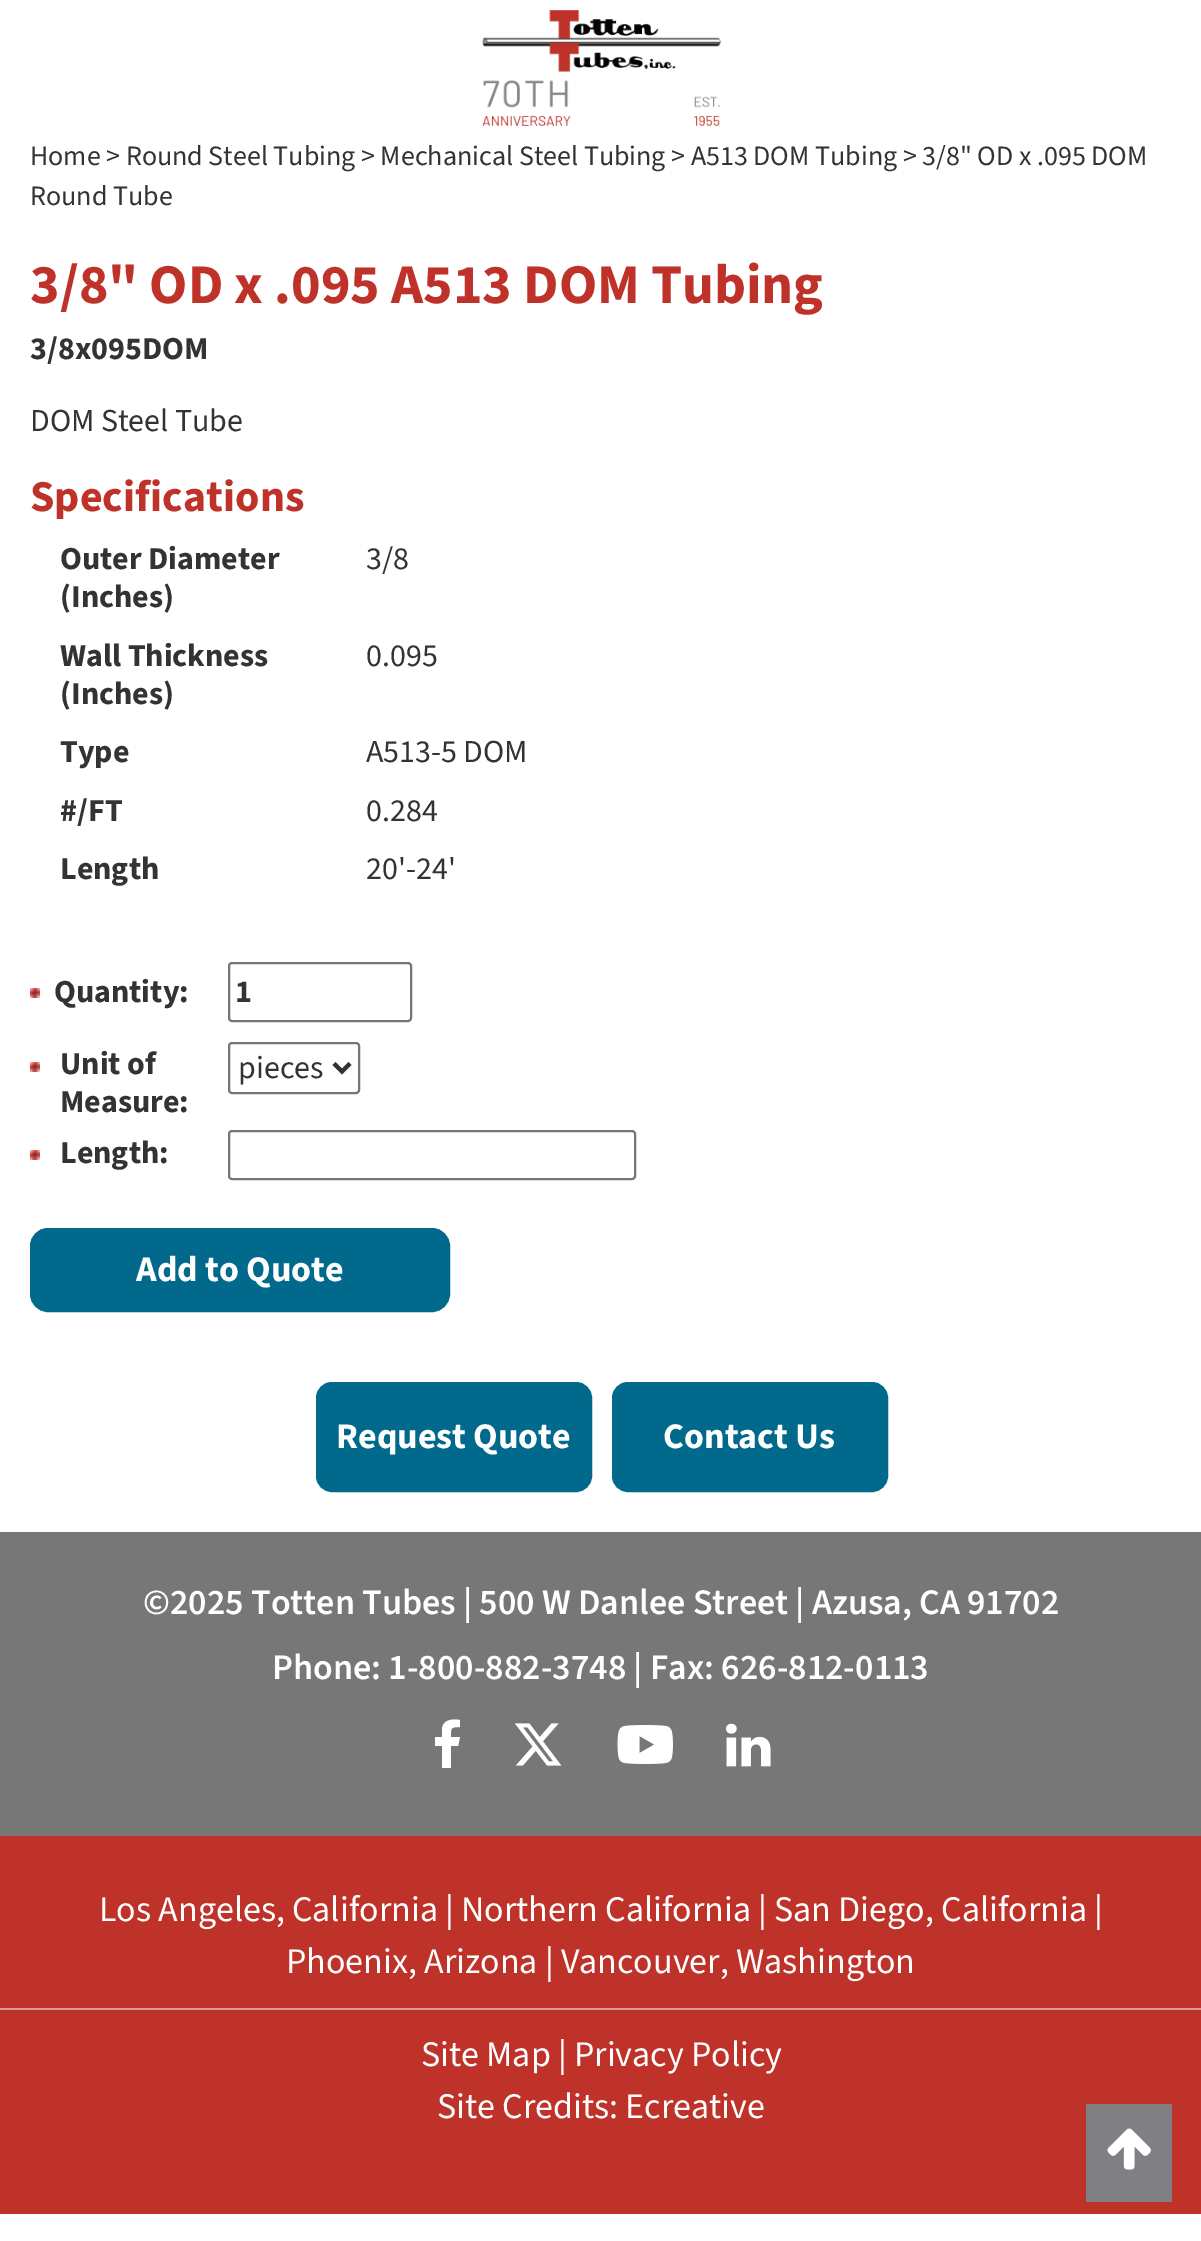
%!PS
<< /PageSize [1201 2241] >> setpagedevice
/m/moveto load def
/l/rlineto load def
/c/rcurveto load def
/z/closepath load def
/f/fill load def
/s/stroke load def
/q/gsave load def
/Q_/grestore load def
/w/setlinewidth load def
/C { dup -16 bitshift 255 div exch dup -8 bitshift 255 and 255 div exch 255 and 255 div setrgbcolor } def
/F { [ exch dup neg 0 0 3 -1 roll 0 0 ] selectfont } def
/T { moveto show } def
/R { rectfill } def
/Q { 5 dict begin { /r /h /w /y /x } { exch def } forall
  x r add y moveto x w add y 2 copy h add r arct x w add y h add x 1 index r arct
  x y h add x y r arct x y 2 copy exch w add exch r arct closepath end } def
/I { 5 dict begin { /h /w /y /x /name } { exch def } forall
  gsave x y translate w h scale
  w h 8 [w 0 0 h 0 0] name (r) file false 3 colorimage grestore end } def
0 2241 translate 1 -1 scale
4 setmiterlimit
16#FFFFFF C
0 0 1201 2241 R
(1.rgb) 482 10 239 116 I
/SourceSans3-Regular 28 F
16#333333 C
(Home > Round Steel Tubing > Mechanical Steel Tubing > A513 DOM Tubing > 3/8" OD x .095 DOM) 30 165 T
(Round Tube) 30 205 T
/SourceSans3-Bold 56 F
16#BF3229 C
(3/8" OD x .095 A513 DOM Tubing) 30 303 T
/SourceSans3-Bold 32 F
16#333333 C
(3/8x095DOM) 30 359 T
/SourceSans3-Regular 32 F
(DOM Steel Tube) 30 431 T
/SourceSans3-Bold 44 F
16#BF3229 C
(Specifications) 30 511 T
/SourceSans3-Bold 32 F
16#333333 C
(Outer Diameter) 60 569 T
(\(Inches\)) 60 607 T
/SourceSans3-Regular 32 F
(3/8) 366 569 T
/SourceSans3-Bold 32 F
(Wall Thickness) 60 666 T
(\(Inches\)) 60 704 T
/SourceSans3-Regular 32 F
(0.095) 366 666 T
/SourceSans3-Bold 32 F
(Type) 60 762 T
/SourceSans3-Regular 32 F
(A513-5 DOM) 366 762 T
/SourceSans3-Bold 32 F
(#/FT) 60 821 T
/SourceSans3-Regular 32 F
(0.284) 366 821 T
/SourceSans3-Bold 32 F
(Length) 60 879 T
/SourceSans3-Regular 32 F
(20'-24') 366 879 T
(2.rgb) 30 988 10 10 I
/SourceSans3-Bold 32 F
(Quantity:) 54 1002 T
16#767676 C
2 w
229 963 182 58 3 Q s
16#333333 C
(1) 235 1002 T
(2.rgb) 30 1062 10 10 I
(Unit of) 60 1074 T
(Measure:) 60 1112 T
16#767676 C
229 1043 130 50 3 Q s
16#333333 C
4 w
334 1063.5 m 8 8 l 8 -8 l s
/SourceSans3-Regular 32 F
(pieces) 238 1078 T
(2.rgb) 30 1150 10 10 I
/SourceSans3-Bold 32 F
(Length:) 60 1163 T
16#767676 C
2 w
229 1131 406 48 3 Q s
16#01698C C
31 1229 418 82 17 Q q f Q_
s
/SourceSans3-Bold 36 F
16#FFFFFF C
(Add to Quote) 136 1281 T
16#01698C C
318 1384 272 106 14 Q q f Q_
4 w
s
16#FFFFFF C
(Request Quote) 336 1448 T
16#01698C C
614 1384 272 106 14 Q q f Q_
s
16#FFFFFF C
(Contact Us) 663 1448 T
16#777777 C
0 1532 1201 304 R
/SourceSans3-SemiBold 36 F
16#FFFFFF C
(©2025 Totten Tubes | 500 W Danlee Street | Azusa, CA 91702) 143 1614 T
(Phone: 1-800-882-3748 | Fax: 626-812-0113) 272 1679 T
460 1720 m 0 7 l -10 0 -9 1 -9 10 c 9 0 l -2 9 l -7 0 l 0 22 l -9 0 l 0 -22 l -7 0 l 0 -9 l 7 0 l 0 -9 l 2 -9 11 -9 18 -8 c z f
(3.rgb) 514 1723 48 43 I
(4.rgb) 617 1725 56 39 I
(5.rgb) 726 1723 45 44 I
16#BF3229 C
0 1836 1201 378 R
16#DF9994 C
0 2008 1201 2 R
/SourceSans3-Regular 36 F
16#FFFFFF C
(Los Angeles, California | Northern California | San Diego, California |) 99 1921 T
(Phoenix, Arizona | Vancouver, Washington) 286 1973 T
(Site Map | Privacy Policy) 421 2066 T
(Site Credits: Ecreative) 437 2118 T
16#807F83 C
1086 2104 86 98 R
(6.rgb) 1107 2128 44 42 I
showpage
